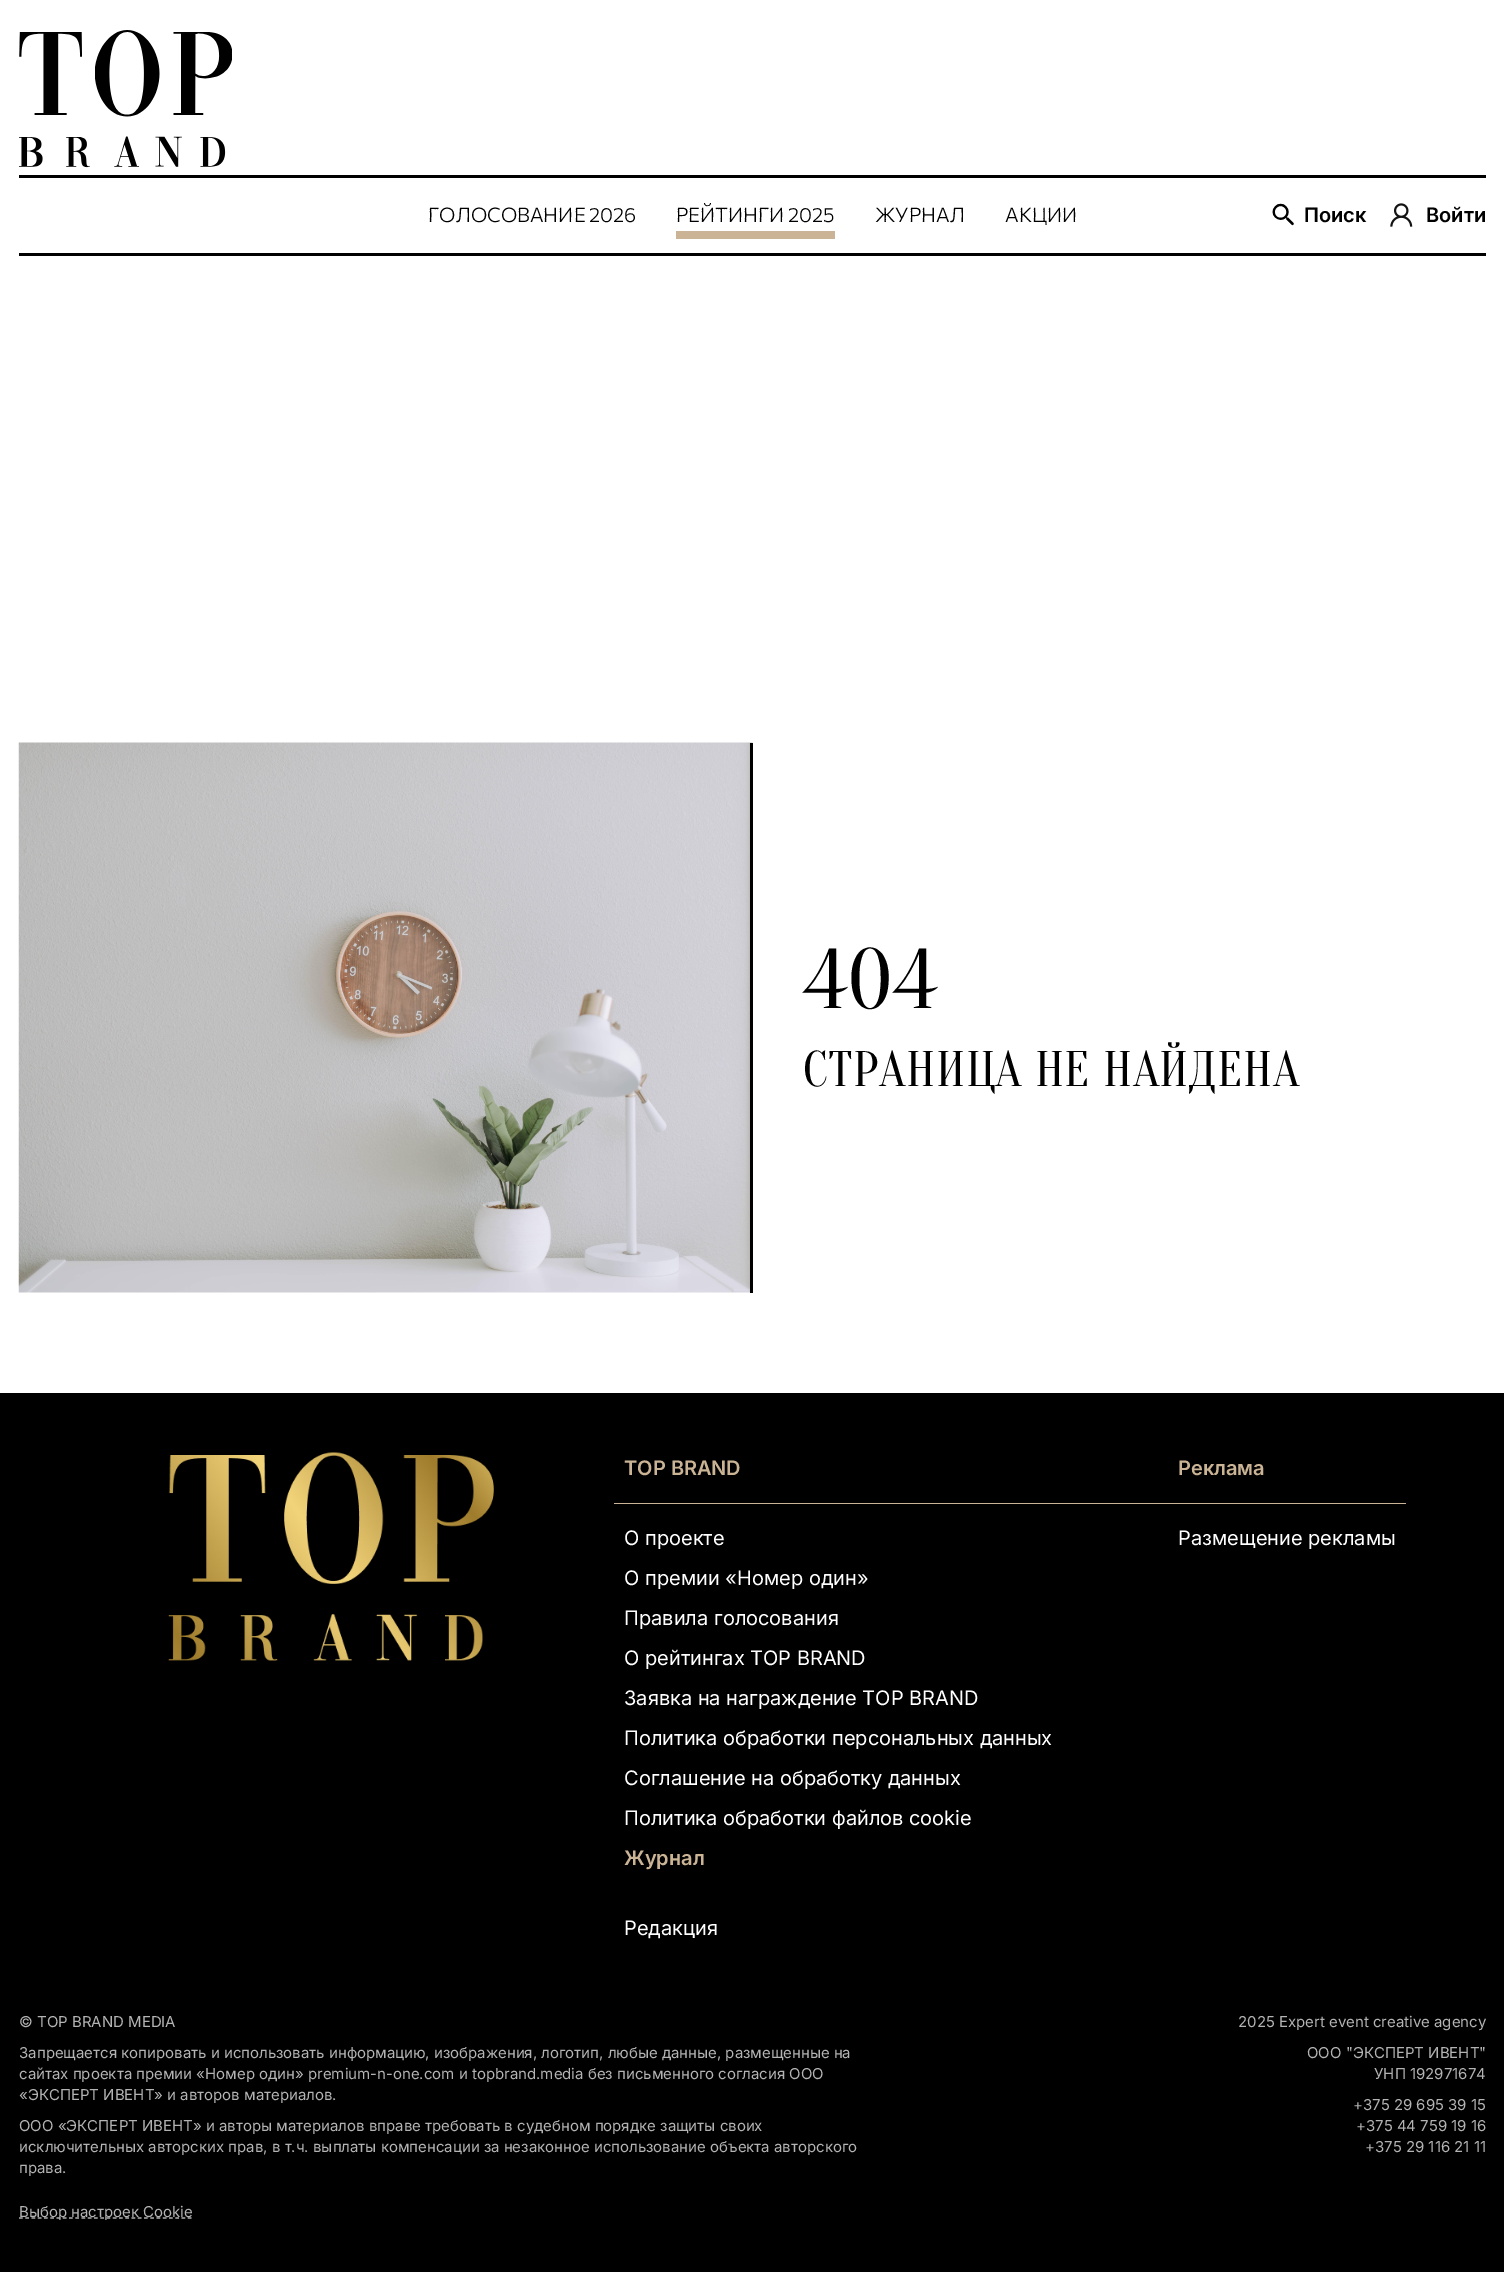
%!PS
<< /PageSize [1504 2272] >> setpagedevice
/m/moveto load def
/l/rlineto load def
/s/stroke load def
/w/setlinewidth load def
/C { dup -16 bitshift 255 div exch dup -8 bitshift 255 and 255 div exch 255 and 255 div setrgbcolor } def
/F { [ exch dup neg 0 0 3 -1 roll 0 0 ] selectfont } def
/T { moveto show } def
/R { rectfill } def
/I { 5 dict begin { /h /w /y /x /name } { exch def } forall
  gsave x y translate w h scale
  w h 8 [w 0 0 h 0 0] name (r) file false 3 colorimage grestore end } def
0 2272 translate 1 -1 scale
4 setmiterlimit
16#FFFFFF C
0 0 1504 2272 R
(1.rgb) 19 30 213 138 I
16#000000 C
19 175 1467 3 R
19 253 1467 3 R
/Commissioner-Thin 20 F
(ГОЛОСОВАНИЕ 2026) 428 222 T
(РЕЙТИНГИ 2025) 676 222 T
16#CBB496 C
676 231 159 8 R
16#000000 C
(ЖУРНАЛ) 875 222 T
(АКЦИИ) 1005 222 T
(2.rgb) 1272 203 22 23 I
/Inter-SemiBold 20 F
(Поиск) 1304 222 T
(3.rgb) 1390 203 23 24 I
(Войти) 1426 222 T
(4.rgb) 18 742 735 551 I
750 743 3 550 R
/Oranienbaum-Regular 85 F
803 1008 m .6 0 (404) ashow
/Oranienbaum-Regular 50 F
803 1086 m .6 0 (СТРАНИЦА НЕ НАЙДЕНА) ashow
0 1393 1504 879 R
(5.rgb) 168 1452 326 209 I
/Inter-SemiBold 20 F
16#CBB496 C
(TOP BRAND) 624 1475 T
/Inter-Regular 20 F
16#FFFFFF C
(О проекте) 624 1545 T
(О премии «Номер один») 624 1585 T
(Правила голосования) 624 1625 T
(О рейтингах TOP BRAND) 624 1665 T
(Заявка на награждение TOP BRAND) 624 1705 T
(Политика обработки персональных данных) 624 1745 T
(Соглашение на обработку данных) 624 1785 T
(Политика обработки файлов cookie) 624 1825 T
/Inter-SemiBold 20 F
16#CBB496 C
(Реклама) 1178 1475 T
/Inter-Regular 20 F
16#FFFFFF C
(Размещение рекламы) 1178 1545 T
16#CBB496 C
614 1503 792 1 R
/Inter-SemiBold 20 F
(Журнал) 624 1865 T
/Inter-Regular 20 F
16#FFFFFF C
(Редакция) 624 1935 T
/Inter-Regular 15 F
16#B3B3B3 C
(© TOP BRAND MEDIA) 19 2027 T
(Запрещается копировать и использовать информацию, изображения, логотип, любые данные, размещенные на) 19 2058 T
(сайтах проекта премии «Номер один» premium-n-one.com и topbrand.media без письменного согласия ООО) 19 2079 T
(«ЭКСПЕРТ ИВЕНТ» и авторов материалов.) 19 2100 T
(ООО «ЭКСПЕРТ ИВЕНТ» и авторы материалов вправе требовать в судебном порядке защиты своих) 19 2131 T
(исключительных авторских прав, в т.ч. выплаты компенсации за незаконное использование объекта авторского) 19 2152 T
(права.) 19 2173 T
1.2 w
[3.75 2.5] 0 setdash
19 2218 m 173.5 0 l s
(Выбор настроек Cookie) 19 2217 T
(2025 Expert event creative agency) 1238 2027 T
(ООО "ЭКСПЕРТ ИВЕНТ") 1307 2058 T
(УНП 192971674) 1374 2079 T
(+375 29 695 39 15) 1353 2110 T
(+375 44 759 19 16) 1356 2131 T
(+375 29 116 21 11) 1365 2152 T
showpage
